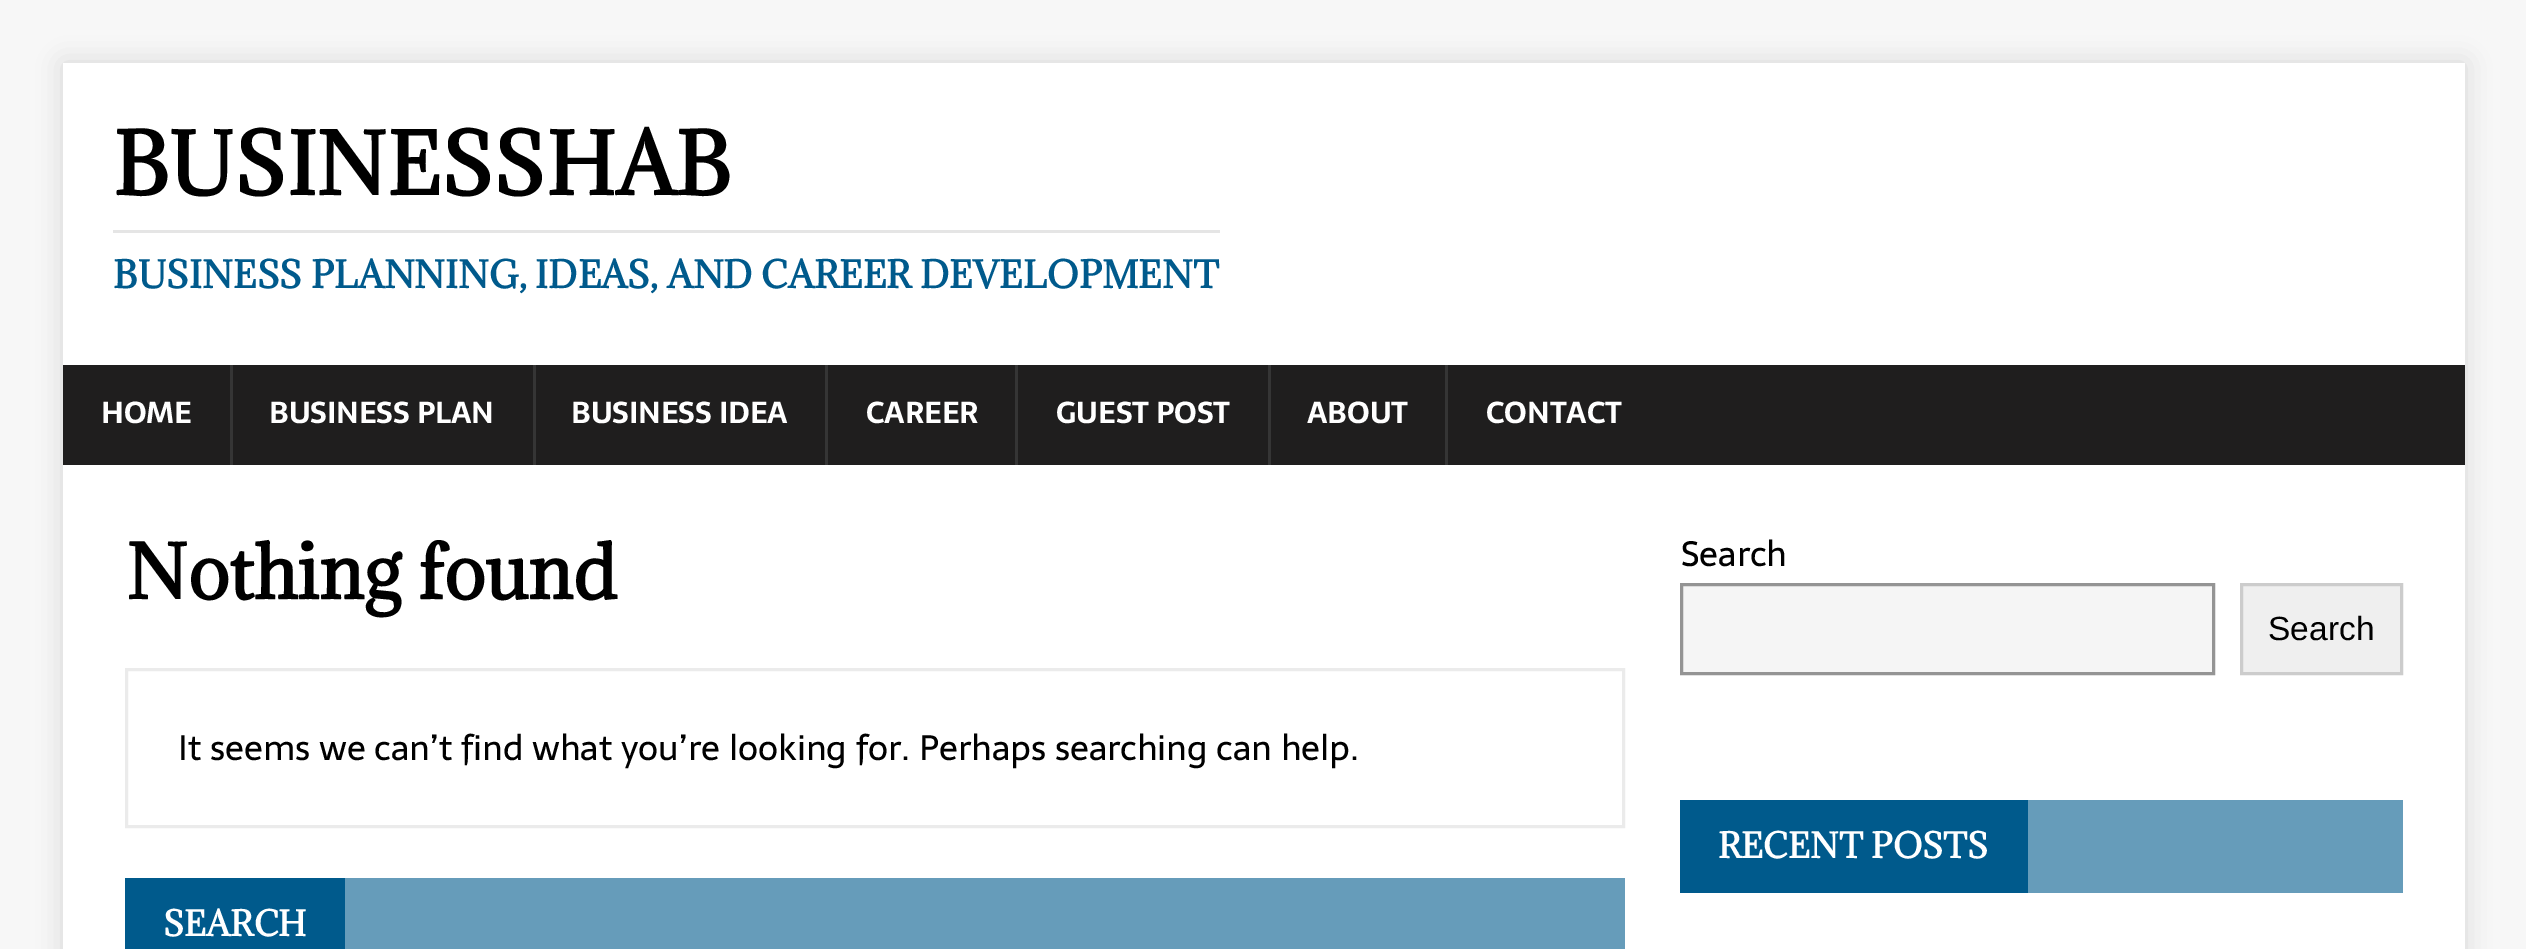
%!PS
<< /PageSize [2526 949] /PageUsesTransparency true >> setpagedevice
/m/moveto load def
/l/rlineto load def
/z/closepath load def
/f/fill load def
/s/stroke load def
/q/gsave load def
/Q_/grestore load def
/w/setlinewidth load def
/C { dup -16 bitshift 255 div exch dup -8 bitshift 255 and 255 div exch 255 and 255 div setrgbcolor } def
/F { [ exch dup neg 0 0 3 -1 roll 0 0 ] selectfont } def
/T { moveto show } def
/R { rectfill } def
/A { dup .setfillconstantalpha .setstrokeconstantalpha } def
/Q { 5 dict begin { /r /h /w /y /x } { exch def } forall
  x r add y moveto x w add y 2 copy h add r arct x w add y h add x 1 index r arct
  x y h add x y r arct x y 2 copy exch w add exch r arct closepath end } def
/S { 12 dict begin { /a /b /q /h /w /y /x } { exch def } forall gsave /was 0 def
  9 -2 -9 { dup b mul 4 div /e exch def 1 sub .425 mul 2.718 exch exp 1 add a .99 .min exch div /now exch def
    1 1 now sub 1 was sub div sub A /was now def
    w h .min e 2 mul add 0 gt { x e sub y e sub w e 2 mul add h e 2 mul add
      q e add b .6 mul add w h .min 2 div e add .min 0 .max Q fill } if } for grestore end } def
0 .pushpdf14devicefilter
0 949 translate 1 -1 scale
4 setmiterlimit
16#F7F7F7 C
0 0 2526 949 R
16#323232 C
63 63 2402 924 0 12.5 .17 S
16#FFFFFF C
63 63 2402 302 R
/Adamina-Bold 80 F
16#000000 C
(BUSINESSHAB) 113 195 T
16#E5E5E5 C
113 230 1107 3 R
/Adamina-Bold 35 F
16#005A8C C
(BUSINESS PLANNING, IDEAS, AND CAREER DEVELOPMENT) 113 288 T
16#1F1E1E C
63 365 2402 100 R
/Sarala-Bold 30 F
16#FFFFFF C
(HOME) 101 423 T
16#353535 C
230 365 3 100 R
16#FFFFFF C
(BUSINESS PLAN) 269 423 T
16#353535 C
533 365 3 100 R
16#FFFFFF C
(BUSINESS IDEA) 571 423 T
16#353535 C
825 365 3 100 R
16#FFFFFF C
(CAREER) 866 423 T
16#353535 C
1015 365 3 100 R
16#FFFFFF C
(GUEST POST) 1056 423 T
16#353535 C
1268 365 3 100 R
16#FFFFFF C
(ABOUT) 1307 423 T
16#353535 C
1445 365 3 100 R
16#FFFFFF C
(CONTACT) 1486 423 T
63 465 2402 484 R
/Adamina-Bold 70 F
16#000000 C
(Nothing found) 126 599 T
16#EBEBEB C
3 w
126.5 669.5 1497 157 rectstroke
/Sarala-Regular 35 F
16#000000 C
(It seems we can’t find what you’re looking for. Perhaps searching can help.) 178 760 T
16#669CBA C
345 878 1280 71 R
16#005A8C C
125 878 220 71 R
/Adamina-Bold 32.5 F
16#FFFFFF C
(SEARCH) 163 936 T
/Sarala-Regular 35 F
16#000000 C
(Search) 1681 566 T
16#F5F5F5 C
1681.5 584.5 m 532 0 l 0 89 l -532 0 l z q f Q_
16#949494 C
s
16#EFEFEF C
2241.5 584.5 m 160 0 l 0 89 l -160 0 l z q f Q_
16#CCCCCC C
s
/LiberationSans-Regular 33.5 F
16#000000 C
(Search) 2268 640 T
16#669CBA C
2028 800 375 93 R
16#005A8C C
1680 800 348 93 R
/Adamina-Bold 32.5 F
16#FFFFFF C
(RECENT POSTS) 1718 858 T
.poppdf14devicefilter showpage
